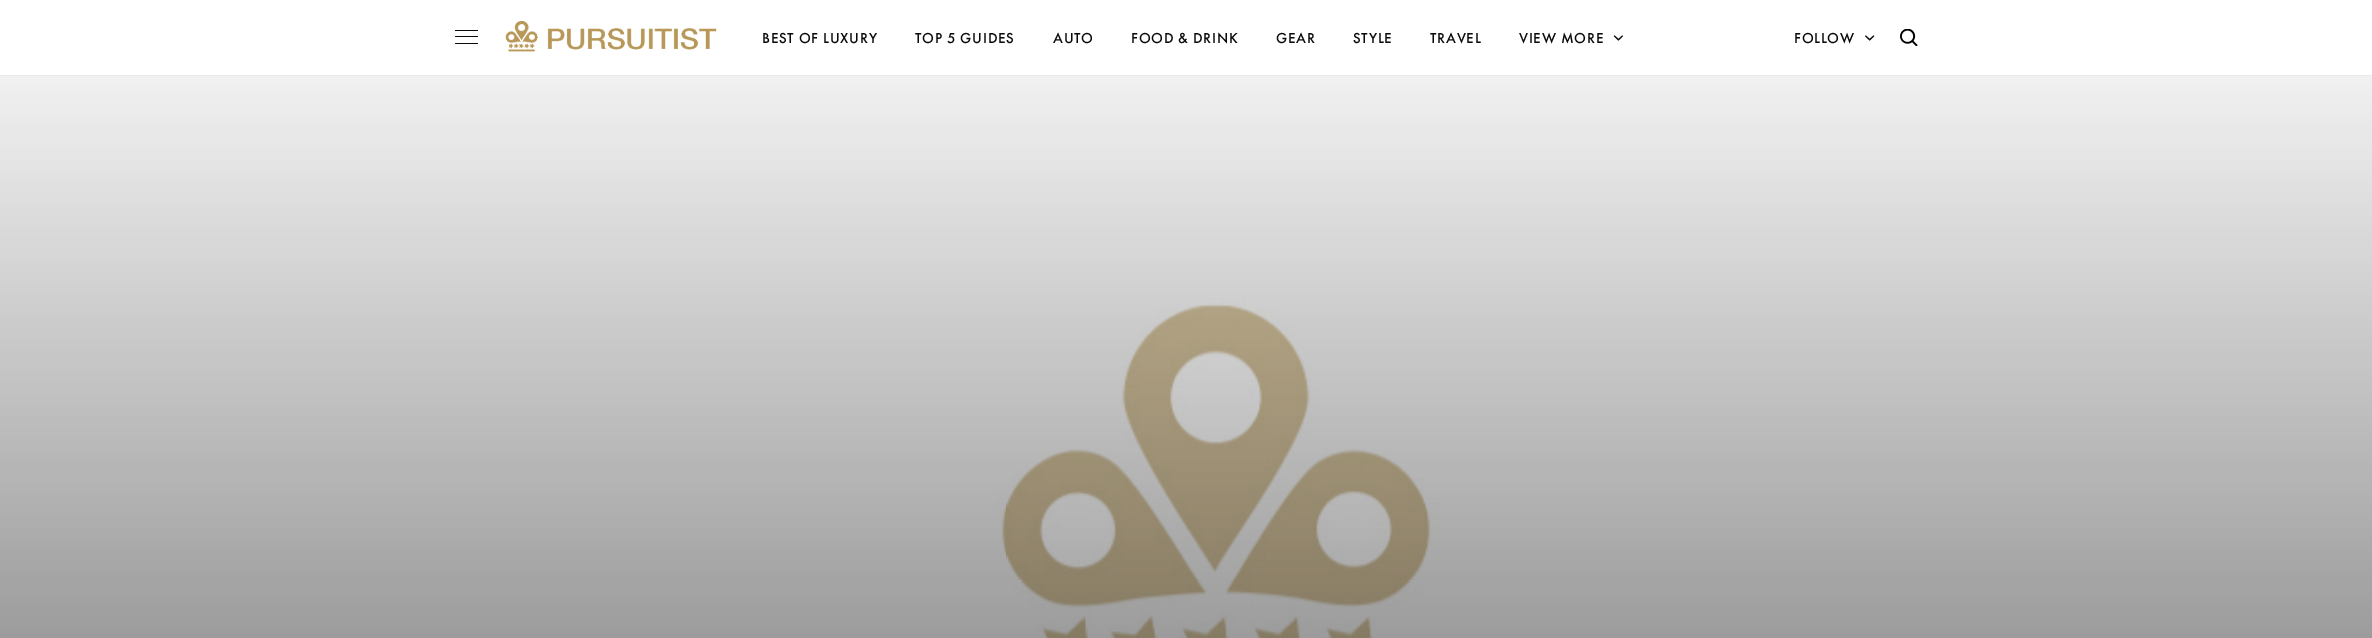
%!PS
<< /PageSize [2372 638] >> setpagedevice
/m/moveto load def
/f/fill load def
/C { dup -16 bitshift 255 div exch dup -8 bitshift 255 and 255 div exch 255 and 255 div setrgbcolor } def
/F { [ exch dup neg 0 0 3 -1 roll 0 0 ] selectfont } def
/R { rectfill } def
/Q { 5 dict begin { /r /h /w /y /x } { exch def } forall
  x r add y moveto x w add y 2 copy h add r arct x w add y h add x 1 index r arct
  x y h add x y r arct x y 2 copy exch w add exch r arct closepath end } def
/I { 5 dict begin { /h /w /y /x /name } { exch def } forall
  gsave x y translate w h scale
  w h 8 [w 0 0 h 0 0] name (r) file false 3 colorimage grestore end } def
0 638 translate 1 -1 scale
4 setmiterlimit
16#FFFFFF C
0 0 2372 638 R
16#E9E9E9 C
0 75 2372 1 R
16#0A0A0A C
455 30 23 1 .5 Q f
455 36 23 1 .5 Q f
455 43 23 1 .5 Q f
(1.rgb) 505 20 212 32 I
/FuturaPT-Medium 15 F
762 43 m .75 0 (BEST OF LUXURY) ashow
915 43 m .75 0 (TOP 5 GUIDES) ashow
1053 43 m .75 0 (AUTO) ashow
1131 43 m .75 0 (FOOD & DRINK) ashow
1276 43 m .75 0 (GEAR) ashow
1353 43 m .75 0 (STYLE) ashow
1430 43 m .75 0 (TRAVEL) ashow
1519 43 m .75 0 (VIEW MORE) ashow
(2.rgb) 1613 35 10 6 I
1794 43 m .75 0 (FOLLOW) ashow
(3.rgb) 1865 35 10 6 I
(4.rgb) 1900 29 18 17 I
(5.rgb) 0 76 2372 562 I
showpage
